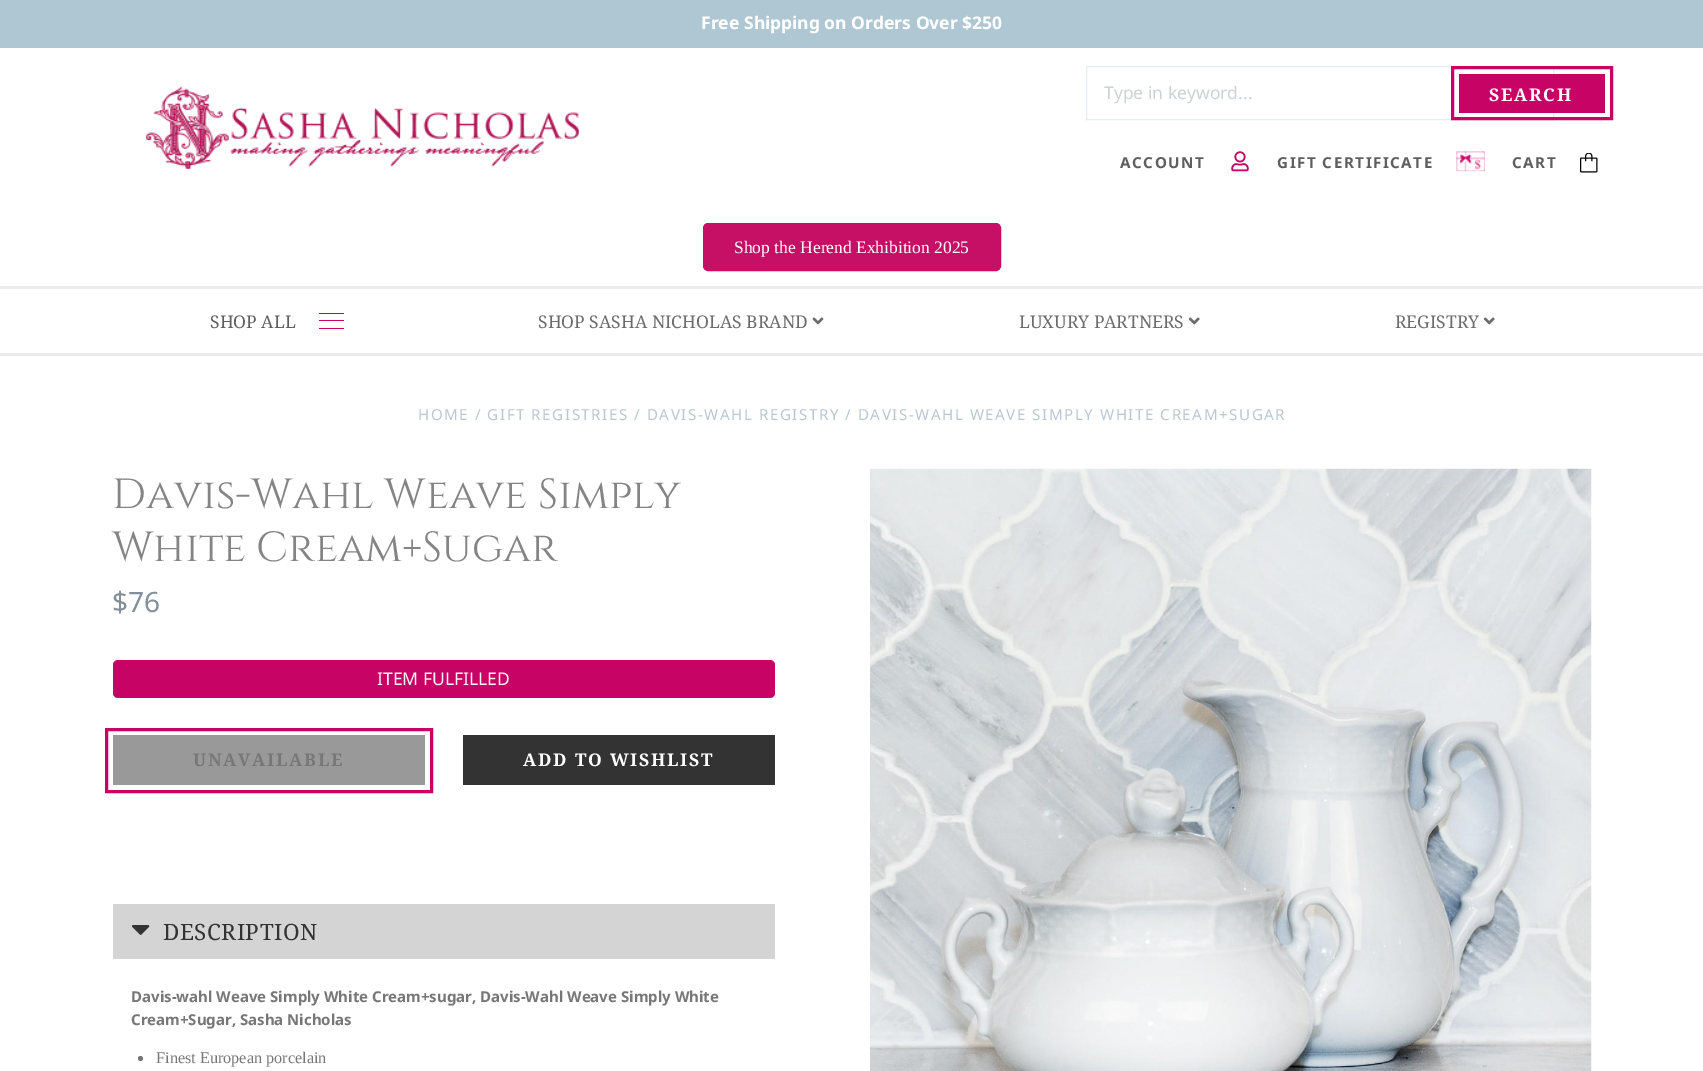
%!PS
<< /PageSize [1703 1071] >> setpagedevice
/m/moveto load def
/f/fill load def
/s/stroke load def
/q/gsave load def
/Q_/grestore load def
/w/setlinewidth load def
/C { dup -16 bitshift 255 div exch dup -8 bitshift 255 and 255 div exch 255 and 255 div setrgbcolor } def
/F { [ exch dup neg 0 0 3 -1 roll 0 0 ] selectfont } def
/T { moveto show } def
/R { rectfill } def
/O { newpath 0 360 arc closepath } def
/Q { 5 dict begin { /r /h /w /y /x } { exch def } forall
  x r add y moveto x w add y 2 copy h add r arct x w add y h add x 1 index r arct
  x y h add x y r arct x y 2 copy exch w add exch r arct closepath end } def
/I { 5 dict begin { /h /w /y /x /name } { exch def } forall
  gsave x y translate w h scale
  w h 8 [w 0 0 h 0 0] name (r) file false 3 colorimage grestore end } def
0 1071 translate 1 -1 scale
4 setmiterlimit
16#FFFFFF C
0 0 1703 1071 R
16#EBEBEB C
0 286 1703 3 R
16#AFC7D3 C
0 0 1703 48 R
/NotoSans-Bold 17.5 F
16#FFFFFF C
(Free Shipping on Orders Over $250) 701 29 T
(1.rgb) 146 86 433 83 I
16#E7ECF0 C
1086.5 66.5 467 53 rectstroke
/NotoSans-Regular 17.5 F
16#CDD2D6 C
(Type in keyword...) 1104 99 T
16#C70365 C
1459 74 146 39 R
3 w
1452.5 67.5 159 51 rectstroke
/NotoSerif-Bold 17.5 F
16#FFFFFF C
1489 101 m 1.75 0 (SEARCH) ashow
/NotoSans-Bold 15.17 F
16#5F5F5F C
1120 168 m 1.52 0 (ACCOUNT) ashow
(2.rgb) 1231 151 18 21 I
1277 168 m 1.52 0 (GIFT CERTIFICATE) ashow
(3.rgb) 1456 151 29 21 I
1512 168 m 1.52 0 (CART) ashow
(4.rgb) 1580 153 18 20 I
16#C51065 C
703.5 223.5 297 47 4.5 Q q f Q_
1 w
s
/LiberationSerif-Regular 17.5 F
16#FFFFFF C
(Shop the Herend Exhibition 2025) 734 253 T
16#EBEBEB C
0 353 1703 3 R
/NotoSerif-Regular 17.5 F
16#5F5F5F C
(SHOP ALL) 210 328 T
16#C70365 C
319 320 25 1 R
319 313 25 1 R
319 328 25 1 R
16#6C6C6C C
(SHOP SASHA NICHOLAS BRAND) 538 328 T
(5.rgb) 812 317 12 8 I
(LUXURY PARTNERS) 1019 328 T
(6.rgb) 1188 317 12 8 I
(REGISTRY) 1395 328 T
(6.rgb) 1483 317 12 8 I
/NotoSans-Regular 15.17 F
16#BAC7D3 C
418 420 m 1.52 0 (HOME / GIFT REGISTRIES / DAVIS-WAHL REGISTRY / DAVIS-WAHL WEAVE SIMPLY WHITE CREAM+SUGAR) ashow
/Cinzel-Regular 42 F
16#848484 C
(Davis-Wahl Weave Simply) 112 508 T
(White Cream+Sugar) 112 561 T
/NotoSans-Regular 28 F
16#838F99 C
($76) 112 612 T
16#C70365 C
113 660 662 38 5 Q f
/NotoSans-Regular 17.5 F
16#F5F5F5 C
(ITEM FULFILLED) 377 685 T
16#999999 C
113 735 312 50 R
16#C70365 C
3 w
106.5 729.5 325 62 rectstroke
/NotoSerif-Bold 17.5 F
16#777777 C
193 766 m 1.75 0 (UNAVAILABLE) ashow
16#333333 C
463 735 312 50 R
16#FFFFFF C
523 766 m 1.75 0 (ADD TO WISHLIST) ashow
16#D4D4D4 C
113 904 662 55 R
(7.rgb) 131 925 19 10 I
/NotoSerif-Regular 22.5 F
16#333333 C
163 940 m .5 0 (DESCRIPTION) ashow
/NotoSans-Bold 15 F
16#777777 C
(Davis-wahl Weave Simply White Cream+sugar, Davis-Wahl Weave Simply White) 131 1002 T
(Cream+Sugar, Sasha Nicholas) 131 1025 T
16#757575 C
140.5 1058.5 2.5 O f
/LiberationSerif-Regular 16.25 F
16#777777 C
(Finest European porcelain) 156 1063 T
(8.rgb) 870 468 722 603 I
showpage
